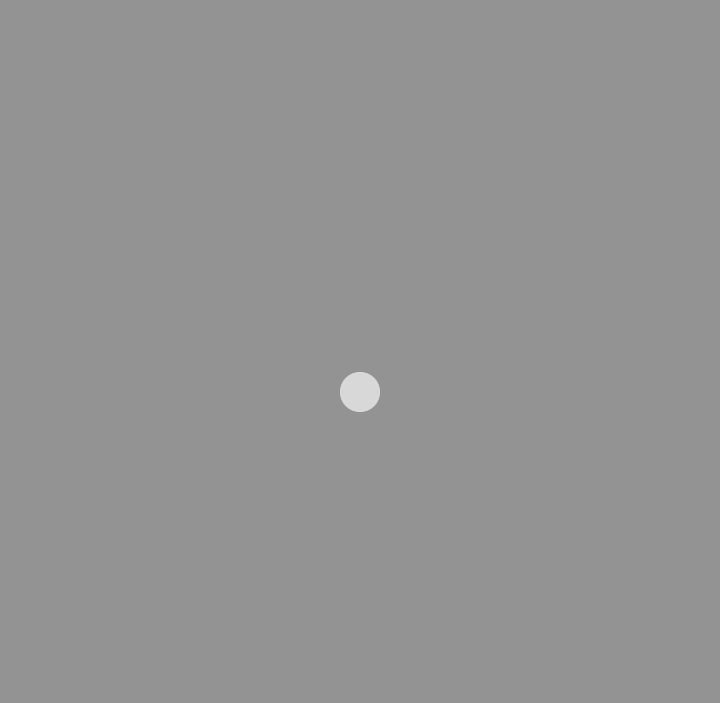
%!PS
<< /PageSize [720 703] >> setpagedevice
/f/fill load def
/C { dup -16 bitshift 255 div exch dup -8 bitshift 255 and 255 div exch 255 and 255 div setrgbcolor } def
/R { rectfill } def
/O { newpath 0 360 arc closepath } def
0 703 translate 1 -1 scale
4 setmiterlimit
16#939393 C
0 0 720 703 R
16#D8D8D8 C
360 392 20 O f
showpage
